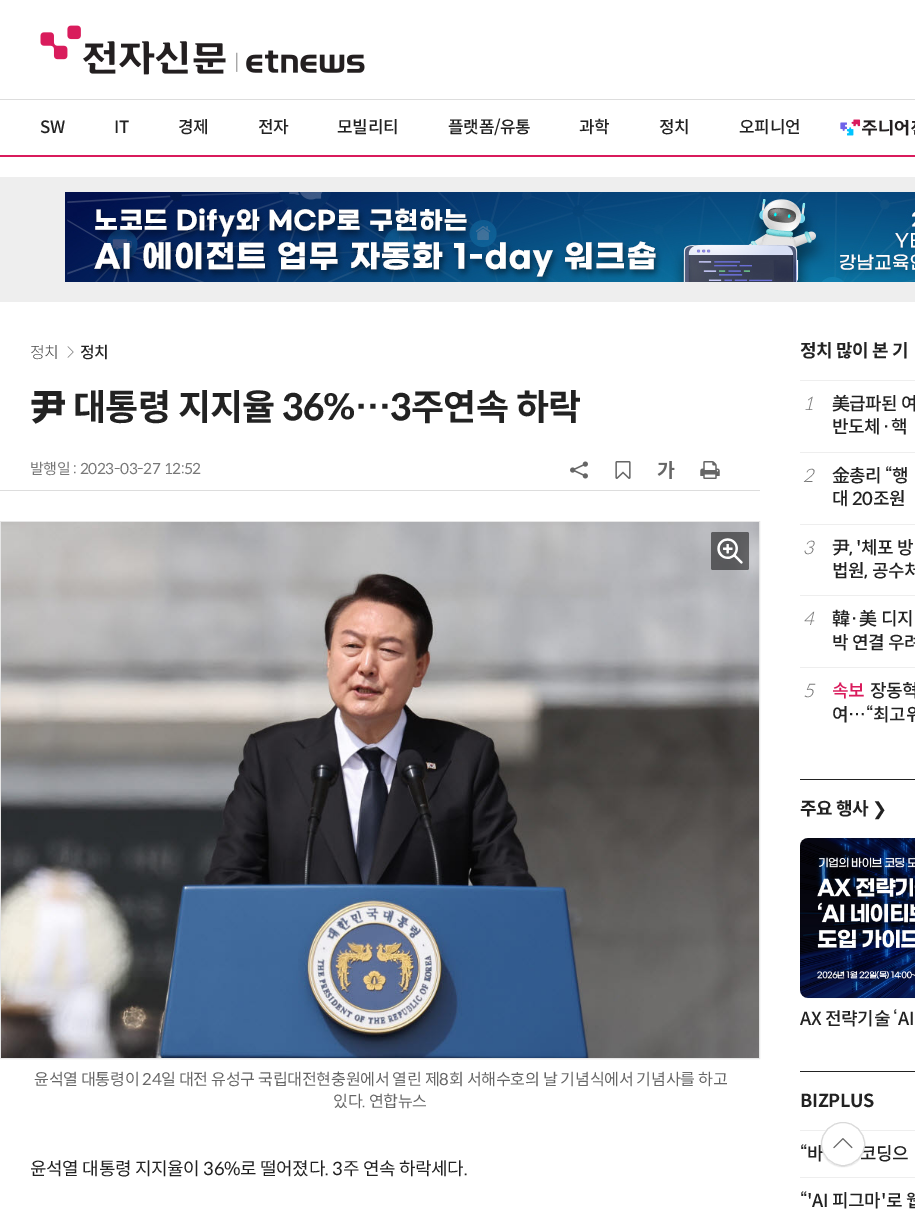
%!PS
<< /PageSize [915 1216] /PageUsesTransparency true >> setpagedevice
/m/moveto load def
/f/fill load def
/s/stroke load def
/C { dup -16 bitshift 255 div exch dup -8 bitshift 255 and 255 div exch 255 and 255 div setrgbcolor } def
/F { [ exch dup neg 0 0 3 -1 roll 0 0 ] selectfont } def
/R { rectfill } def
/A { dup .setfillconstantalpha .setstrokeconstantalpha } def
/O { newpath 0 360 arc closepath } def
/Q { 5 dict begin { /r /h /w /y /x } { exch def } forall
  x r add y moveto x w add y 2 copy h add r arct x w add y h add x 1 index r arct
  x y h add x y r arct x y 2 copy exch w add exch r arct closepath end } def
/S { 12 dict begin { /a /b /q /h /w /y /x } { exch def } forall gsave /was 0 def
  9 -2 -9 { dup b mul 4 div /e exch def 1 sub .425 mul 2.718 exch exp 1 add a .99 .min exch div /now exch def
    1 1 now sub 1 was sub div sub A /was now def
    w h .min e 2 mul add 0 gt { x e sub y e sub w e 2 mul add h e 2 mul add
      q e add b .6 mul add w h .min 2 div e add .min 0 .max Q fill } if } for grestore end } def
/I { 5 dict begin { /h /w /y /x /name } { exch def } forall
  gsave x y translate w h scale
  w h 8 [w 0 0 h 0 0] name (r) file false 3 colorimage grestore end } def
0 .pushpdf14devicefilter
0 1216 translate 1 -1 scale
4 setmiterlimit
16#FFFFFF C
0 0 915 1216 R
16#D91B5C C
0 155 915 2 R
16#DDDDDD C
0 99 915 1 R
(1.rgb) 40 25 325 50 I
/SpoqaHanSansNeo-Medium 17 F
16#222222 C
40 133 m -.35 0 (SW) ashow
114 133 m -.35 0 (IT) ashow
178 133 m -.35 0 (경제) ashow
258 133 m -.35 0 (전자) ashow
337 133 m -.35 0 (모빌리티) ashow
448 133 m -.35 0 (플랫폼/유통) ashow
579 133 m -.35 0 (과학) ashow
659 133 m -.35 0 (정치) ashow
739 133 m -.35 0 (오피니언) ashow
(2.rgb) 840 119 75 17 I
16#EEEEEE C
0 177 915 125 R
(3.rgb) 65 192 850 90 I
16#DDDDDD C
0 490 760 1 R
/SpoqaHanSansNeo-Light 16 F
16#444444 C
30 358 m -.35 0 (정치) ashow
(4.rgb) 67 346 7 12 I
/SpoqaHanSansNeo-Medium 16 F
16#222222 C
80 358 m -.35 0 (정치) ashow
/NotoSansKR-Black 36 F
30 420 m -.75 0 (尹) ashow
/SpoqaHanSansNeo-Bold 36 F
73 420 m -.75 0 (대통령 지지율 36%…3주연속 하락) ashow
/SpoqaHanSansNeo-Regular 15 F
16#777777 C
30 474 m -.35 0 (발행일 : 2023-03-27 12:52) ashow
(5.rgb) 570 461 18 18 I
(6.rgb) 615 461 16 18 I
(7.rgb) 657 461 18 18 I
(8.rgb) 700 461 20 18 I
16#E6E6E6 C
.5 521.5 759 537 rectstroke
(9.rgb) 1 522 758 536 I
0.5 A
16#000000 C
711 532 38 38 2 Q f
1 A
(10.rgb) 717 538 26 26 I
/SpoqaHanSansNeo-Regular 16.2 F
16#666666 C
34 1085 m -.35 0 (윤석열 대통령이 24일 대전 유성구 국립대전현충원에서 열린 제8회 서해수호의 날 기념식에서 기념사를 하고) ashow
333 1107 m -.35 0 (있다. 연합뉴스) ashow
/SpoqaHanSansNeo-Regular 18 F
16#222222 C
30 1175 m -.35 0 (윤석열 대통령 지지율이 36%로 떨어졌다. 3주 연속 하락세다.) ashow
/SpoqaHanSansNeo-Bold 18 F
800 357 m -.35 0 (정치 많이 본 기) ashow
16#EEEEEE C
800 380 115 1 R
/SpoqaHanSansNeo-LightItalic 18 F
16#777777 C
803 410 m -.35 0 (1) ashow
/NotoSansKR-Medium 18 F
16#222222 C
832 410 m -.35 0 (美) ashow
/SpoqaHanSansNeo-Medium 18 F
849 410 m -.35 0 (급파된 여) ashow
832 433 m -.35 0 (반도체·핵) ashow
16#EEEEEE C
800 452 115 1 R
/SpoqaHanSansNeo-LightItalic 18 F
16#777777 C
803 482 m -.35 0 (2) ashow
/NotoSansKR-Medium 18 F
16#222222 C
832 482 m -.35 0 (金) ashow
/SpoqaHanSansNeo-Medium 18 F
849 482 m -.35 0 (총리 “행) ashow
832 505 m -.35 0 (대 20조원) ashow
16#EEEEEE C
800 524 115 1 R
/SpoqaHanSansNeo-LightItalic 18 F
16#777777 C
803 554 m -.35 0 (3) ashow
/NotoSansKR-Medium 18 F
16#222222 C
832 554 m -.35 0 (尹) ashow
/SpoqaHanSansNeo-Medium 18 F
849 554 m -.35 0 (, '체포 방) ashow
832 577 m -.35 0 (법원, 공수처) ashow
16#EEEEEE C
800 595 115 1 R
/SpoqaHanSansNeo-LightItalic 18 F
16#777777 C
803 625 m -.35 0 (4) ashow
/NotoSansKR-Medium 18 F
16#222222 C
832 625 m -.35 0 (韓) ashow
/SpoqaHanSansNeo-Medium 18 F
849 625 m -.35 0 (·) ashow
/NotoSansKR-Medium 18 F
859 625 m -.35 0 (美) ashow
/SpoqaHanSansNeo-Medium 18 F
881 625 m -.35 0 (디지) ashow
832 649 m -.35 0 (박 연결 우려) ashow
16#EEEEEE C
800 667 115 1 R
/SpoqaHanSansNeo-LightItalic 18 F
16#777777 C
803 697 m -.35 0 (5) ashow
/SpoqaHanSansNeo-Medium 18 F
16#D91B5C C
832 697 m -.35 0 (속보) ashow
16#222222 C
870 697 m -.35 0 (장동혁) ashow
832 721 m -.35 0 (여…“최고위) ashow
800 779 115 1 R
/SpoqaHanSansNeo-Bold 18 F
800 815 m -.35 0 (주요 행사) ashow
/DejaVuSans-Regular 18 F
872 815 m -.35 0 (❯) ashow
(11.rgb) 800 838 115 160 I
0.1 A
16#000000 C
800.5 838.5 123 159 7.5 Q s
/SpoqaHanSansNeo-Medium 18 F
1 A
16#222222 C
800 1025 m -.35 0 (AX 전략기술 ‘AI) ashow
800 1071 115 1 R
/SpoqaHanSansNeo-Bold 18 F
800 1107 m -.35 0 (BIZPLUS) ashow
16#EEEEEE C
800 1130 115 1 R
/SpoqaHanSansNeo-Medium 18 F
16#222222 C
800 1160 m -.35 0 (“바) ashow
860 1160 m -.35 0 (코딩으) ashow
16#EEEEEE C
800 1177 115 1 R
16#222222 C
800 1207 m -.35 0 (“'AI 피그마'로 웹) ashow
16#000000 C
821 1123 44 44 22 .5 .1 S
16#FFFFFF C
843 1144 22 O f
0.15 A
16#000000 C
843 1144 21.5 O s
1 A
(12.rgb) 833 1138 20 11 I
.poppdf14devicefilter showpage
